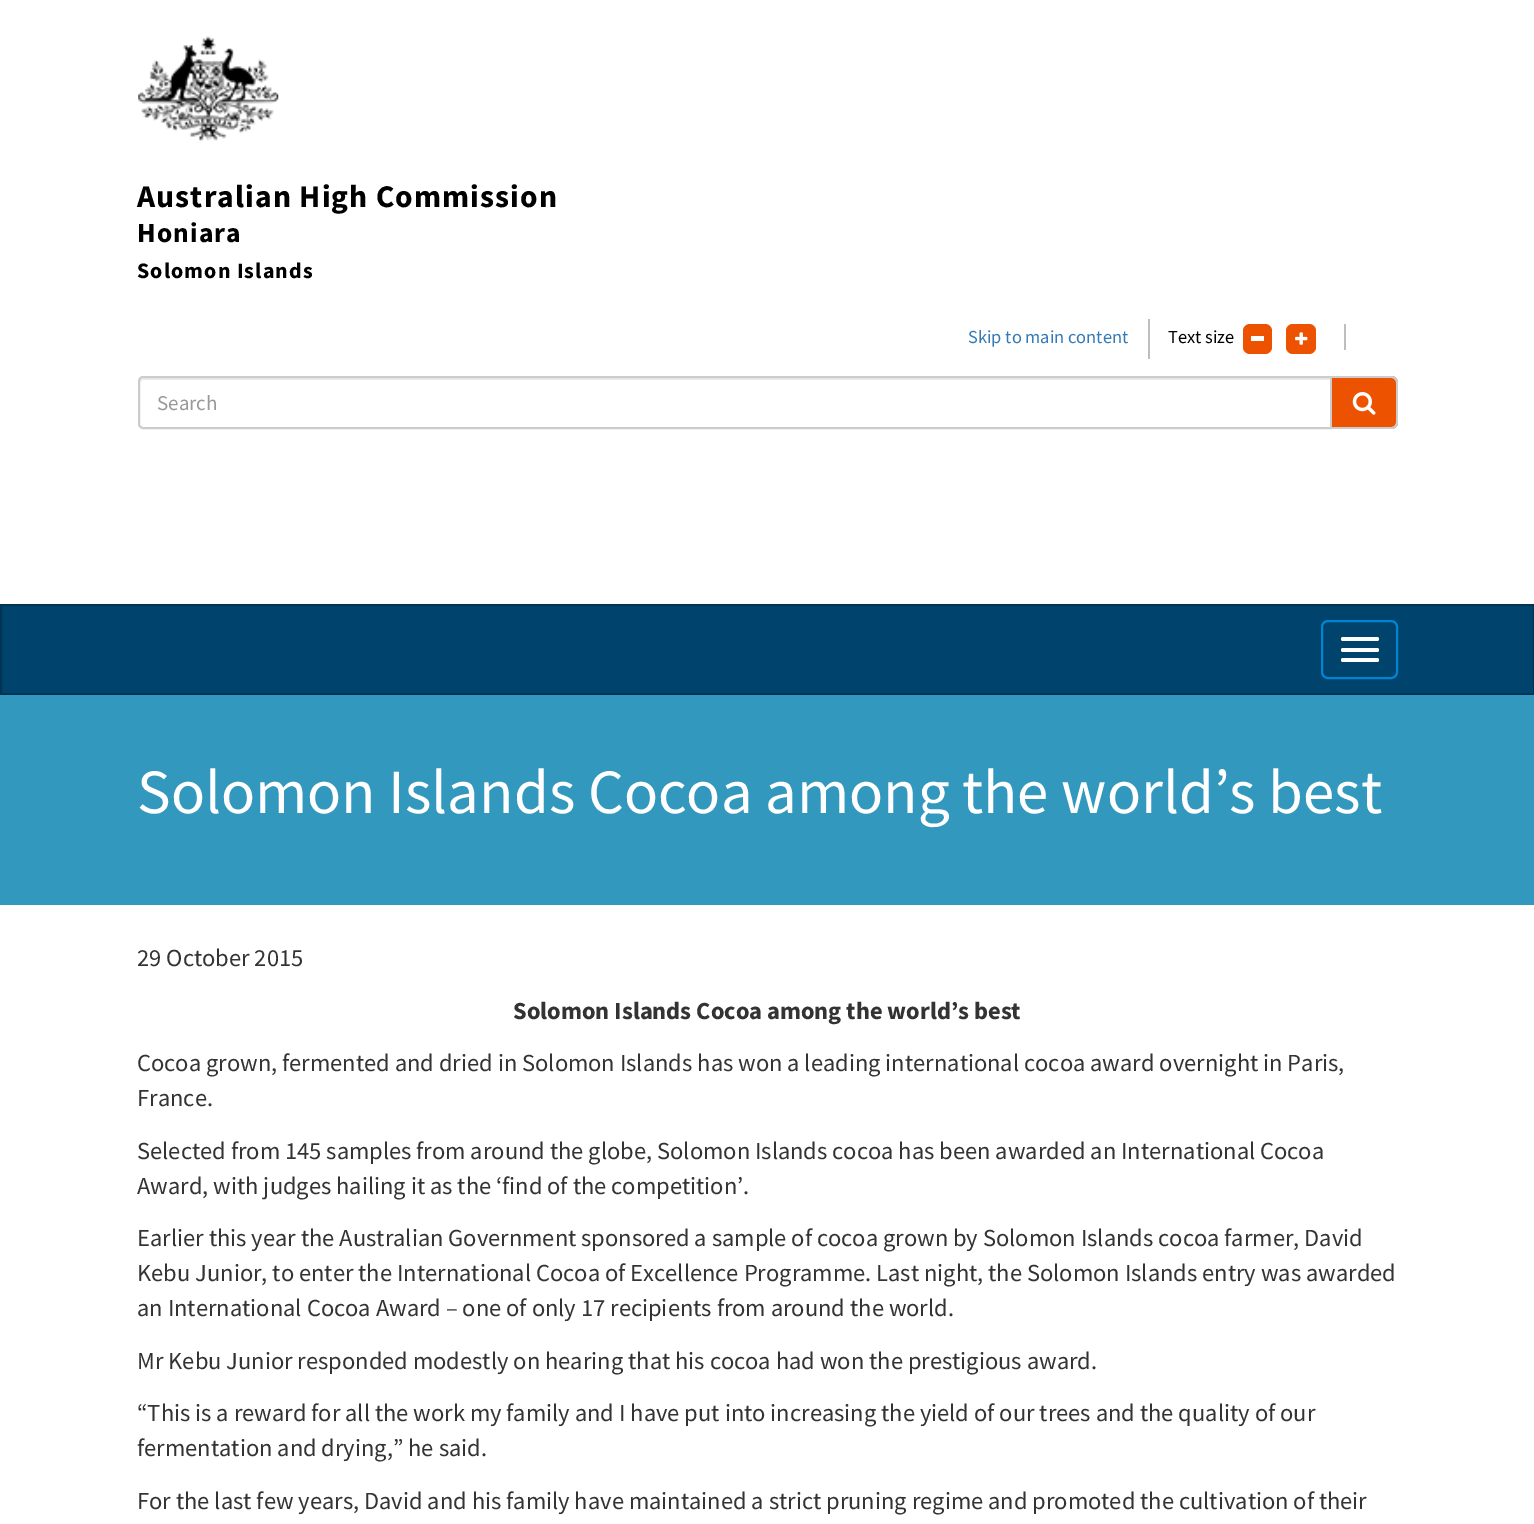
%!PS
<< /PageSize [1534 1524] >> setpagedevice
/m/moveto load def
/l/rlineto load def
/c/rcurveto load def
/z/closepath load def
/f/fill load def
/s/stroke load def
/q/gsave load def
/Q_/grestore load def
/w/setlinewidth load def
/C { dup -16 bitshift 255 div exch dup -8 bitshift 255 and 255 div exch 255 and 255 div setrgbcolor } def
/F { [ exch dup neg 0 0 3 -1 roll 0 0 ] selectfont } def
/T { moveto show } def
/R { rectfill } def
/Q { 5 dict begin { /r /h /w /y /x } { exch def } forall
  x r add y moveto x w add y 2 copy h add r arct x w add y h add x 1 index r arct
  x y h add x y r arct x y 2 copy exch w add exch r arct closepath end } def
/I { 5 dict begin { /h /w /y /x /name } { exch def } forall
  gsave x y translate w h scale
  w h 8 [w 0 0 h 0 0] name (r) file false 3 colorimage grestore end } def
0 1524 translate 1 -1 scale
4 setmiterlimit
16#FFFFFF C
0 0 1534 1524 R
(1.rgb) 138 36 141 105 I
/SourceSansPro-Bold 31.6 F
16#000000 C
137 207 m 1.1 0 (Australian High Commission) ashow
/SourceSansPro-Bold 27.5 F
137 242 m 1.1 0 (Honiara) ashow
/SourceSansPro-Bold 22 F
137 278 m 1.1 0 (Solomon Islands) ashow
/SourceSansPro-Regular 18.4 F
16#337AB7 C
(Skip to main content) 968 343 T
16#BEBEBE C
1148 319 2 40 R
16#000000 C
(Text size) 1168 343 T
16#EC5200 C
1243 324 29 30 7 Q f
16#FFFFFF C
1251 336 13 5 R
16#EC5200 C
1286 324 30 30 7 Q f
(2.rgb) 1295 332 13 13 I
16#BEBEBE C
1344 324 2 26 R
16#ECECEC C
144 380 m 1186 0 l 0 -2 l -1186 0 l -3 0 -4 2 -4 5 c 0 -2 2 -3 4 -3 c z f
16#CCCCCC C
2 w
143 377 m 1188 0 l 0 51 l -1188 0 l -2 0 -4 -2 -4 -4 c 0 -43 l 0 -2 2 -4 4 -4 c z s
/SourceSansPro-Regular 21 F
16#999999 C
(Search) 157 410 T
16#EC5200 C
1332 376 m 59 0 l 4 0 7 3 7 7 c 0 39 l 0 4 -3 7 -7 7 c -59 0 l z f
16#CCCCCC C
1332 376 m 59 0 l 4 0 7 3 7 7 c 0 39 l 0 4 -3 7 -7 7 c -59 0 l z 1332 378 m 59 0 l 3 0 5 2 5 5 c 0 39 l 0 3 -2 5 -5 5 c -59 0 l z eofill
(3.rgb) 1352 392 24 23 I
16#00446D C
1 605 m 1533 0 l 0 89 l -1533 0 l z q f Q_
16#003454 C
s
16#0084D3 C
1322 621 75 57 6 Q s
16#FFFFFF C
1341 637 38 4 2 Q f
1341 648 38 4 2 Q f
1341 658 38 4 2 Q f
16#3398BD C
0 695 1534 210 R
/SourceSansPro-Regular 63 F
16#FFFFFF C
(Solomon Islands Cocoa among the world’s best) 137 813 T
/SourceSansPro-Regular 24.5 F
16#333333 C
(29 October 2015) 137 966 T
/SourceSansPro-Bold 24.5 F
(Solomon Islands Cocoa among the world’s best) 513 1019 T
/SourceSansPro-Regular 24.5 F
(Cocoa grown, fermented and dried in Solomon Islands has won a leading international cocoa award overnight in Paris,) 137 1071 T
(France.) 137 1106 T
(Selected from 145 samples from around the globe, Solomon Islands cocoa has been awarded an International Cocoa) 137 1159 T
(Award, with judges hailing it as the ‘find of the competition’.) 137 1194 T
(Earlier this year the Australian Government sponsored a sample of cocoa grown by Solomon Islands cocoa farmer, David) 137 1246 T
(Kebu Junior, to enter the International Cocoa of Excellence Programme. Last night, the Solomon Islands entry was awarded) 137 1281 T
(an International Cocoa Award – one of only 17 recipients from around the world.) 137 1316 T
(Mr Kebu Junior responded modestly on hearing that his cocoa had won the prestigious award.) 137 1369 T
(“This is a reward for all the work my family and I have put into increasing the yield of our trees and the quality of our) 137 1421 T
(fermentation and drying,” he said.) 137 1456 T
(For the last few years, David and his family have maintained a strict pruning regime and promoted the cultivation of their) 137 1509 T
showpage
